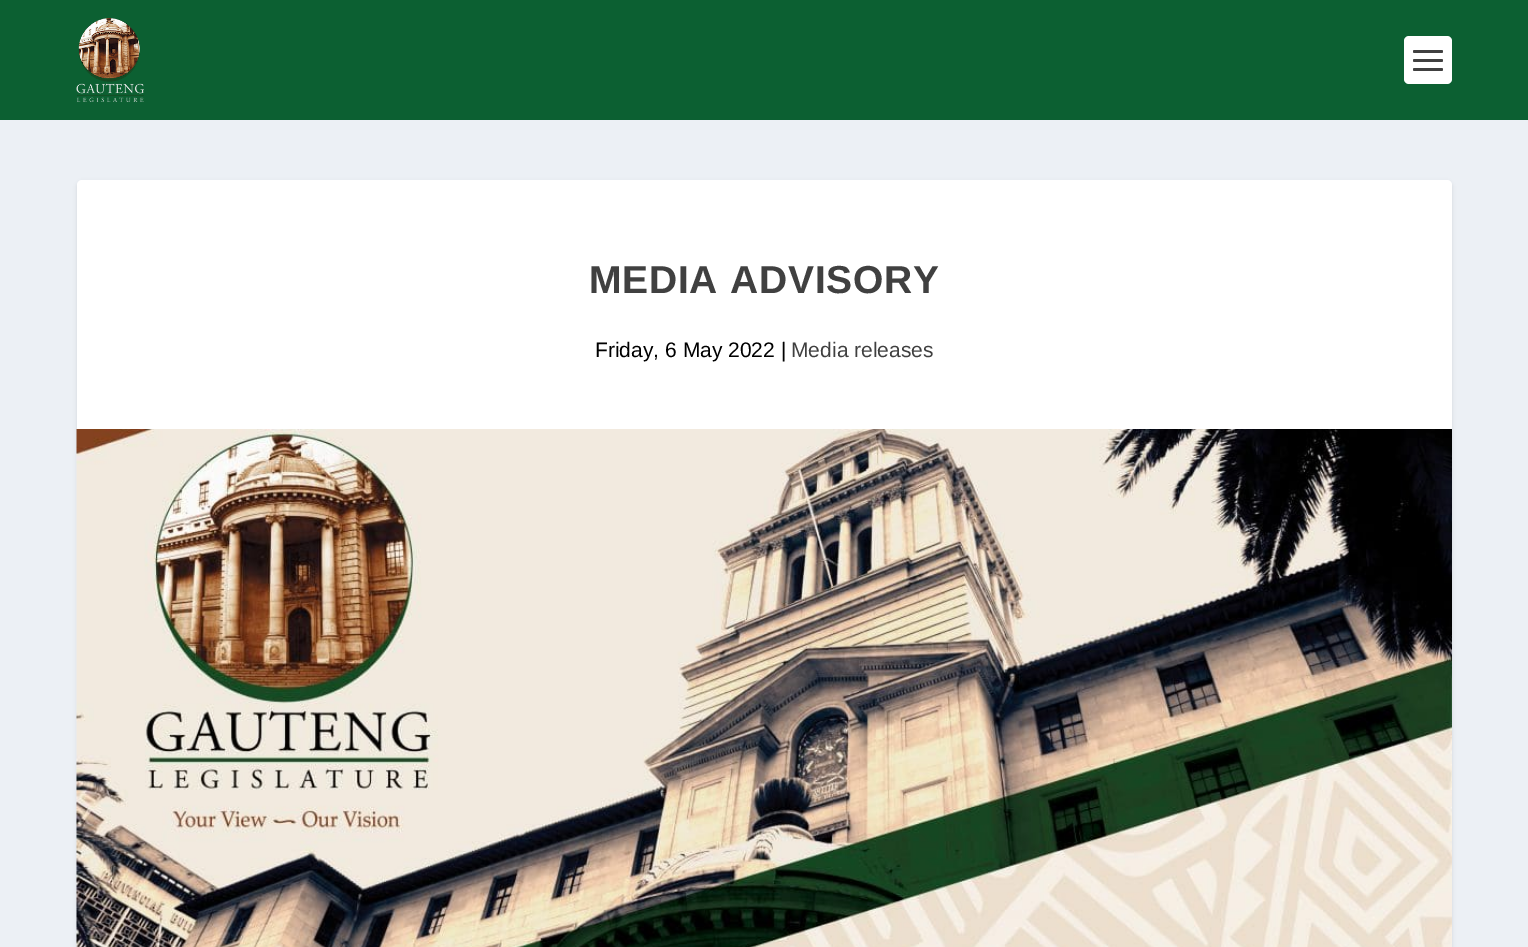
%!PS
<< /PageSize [1528 947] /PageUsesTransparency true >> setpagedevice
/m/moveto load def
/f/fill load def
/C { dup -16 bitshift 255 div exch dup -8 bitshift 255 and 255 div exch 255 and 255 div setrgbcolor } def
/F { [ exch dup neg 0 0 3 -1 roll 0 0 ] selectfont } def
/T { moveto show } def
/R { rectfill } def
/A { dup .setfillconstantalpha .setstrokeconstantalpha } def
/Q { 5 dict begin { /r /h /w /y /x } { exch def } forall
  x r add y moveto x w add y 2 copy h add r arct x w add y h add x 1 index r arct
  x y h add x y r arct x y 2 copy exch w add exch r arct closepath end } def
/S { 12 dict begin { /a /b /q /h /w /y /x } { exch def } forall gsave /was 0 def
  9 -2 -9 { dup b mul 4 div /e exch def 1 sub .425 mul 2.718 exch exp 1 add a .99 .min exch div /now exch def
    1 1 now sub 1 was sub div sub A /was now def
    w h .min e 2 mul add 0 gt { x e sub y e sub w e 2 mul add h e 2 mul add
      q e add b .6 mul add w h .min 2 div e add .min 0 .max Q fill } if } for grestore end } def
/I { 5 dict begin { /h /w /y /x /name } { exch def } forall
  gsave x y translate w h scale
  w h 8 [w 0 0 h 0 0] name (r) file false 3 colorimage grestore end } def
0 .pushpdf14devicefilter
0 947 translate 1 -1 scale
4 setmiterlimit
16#ECF0F5 C
0 0 1528 947 R
16#0C6032 C
0 0 1528 120 R
(1.rgb) 76 18 68 84 I
16#FFFFFF C
1404 36 48 48 5 Q f
16#404040 C
1413 50 30 3 1.5 Q f
1413 59 30 3 1.5 Q f
1413 68 30 3 1.5 Q f
16#000000 C
77 182 1375 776 5 2 .1 S
16#FFFFFF C
77 180 1375 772 5 Q f
/LiberationSans-Bold 39 F
16#404040 C
589 293 m .75 0 (MEDIA ADVISORY) ashow
/LiberationSans-Regular 21 F
16#000000 C
(Friday, 6 May 2022 |) 595 357 T
16#404040 C
(Media releases) 791 357 T
(2.rgb) 76 429 1376 518 I
.poppdf14devicefilter showpage
